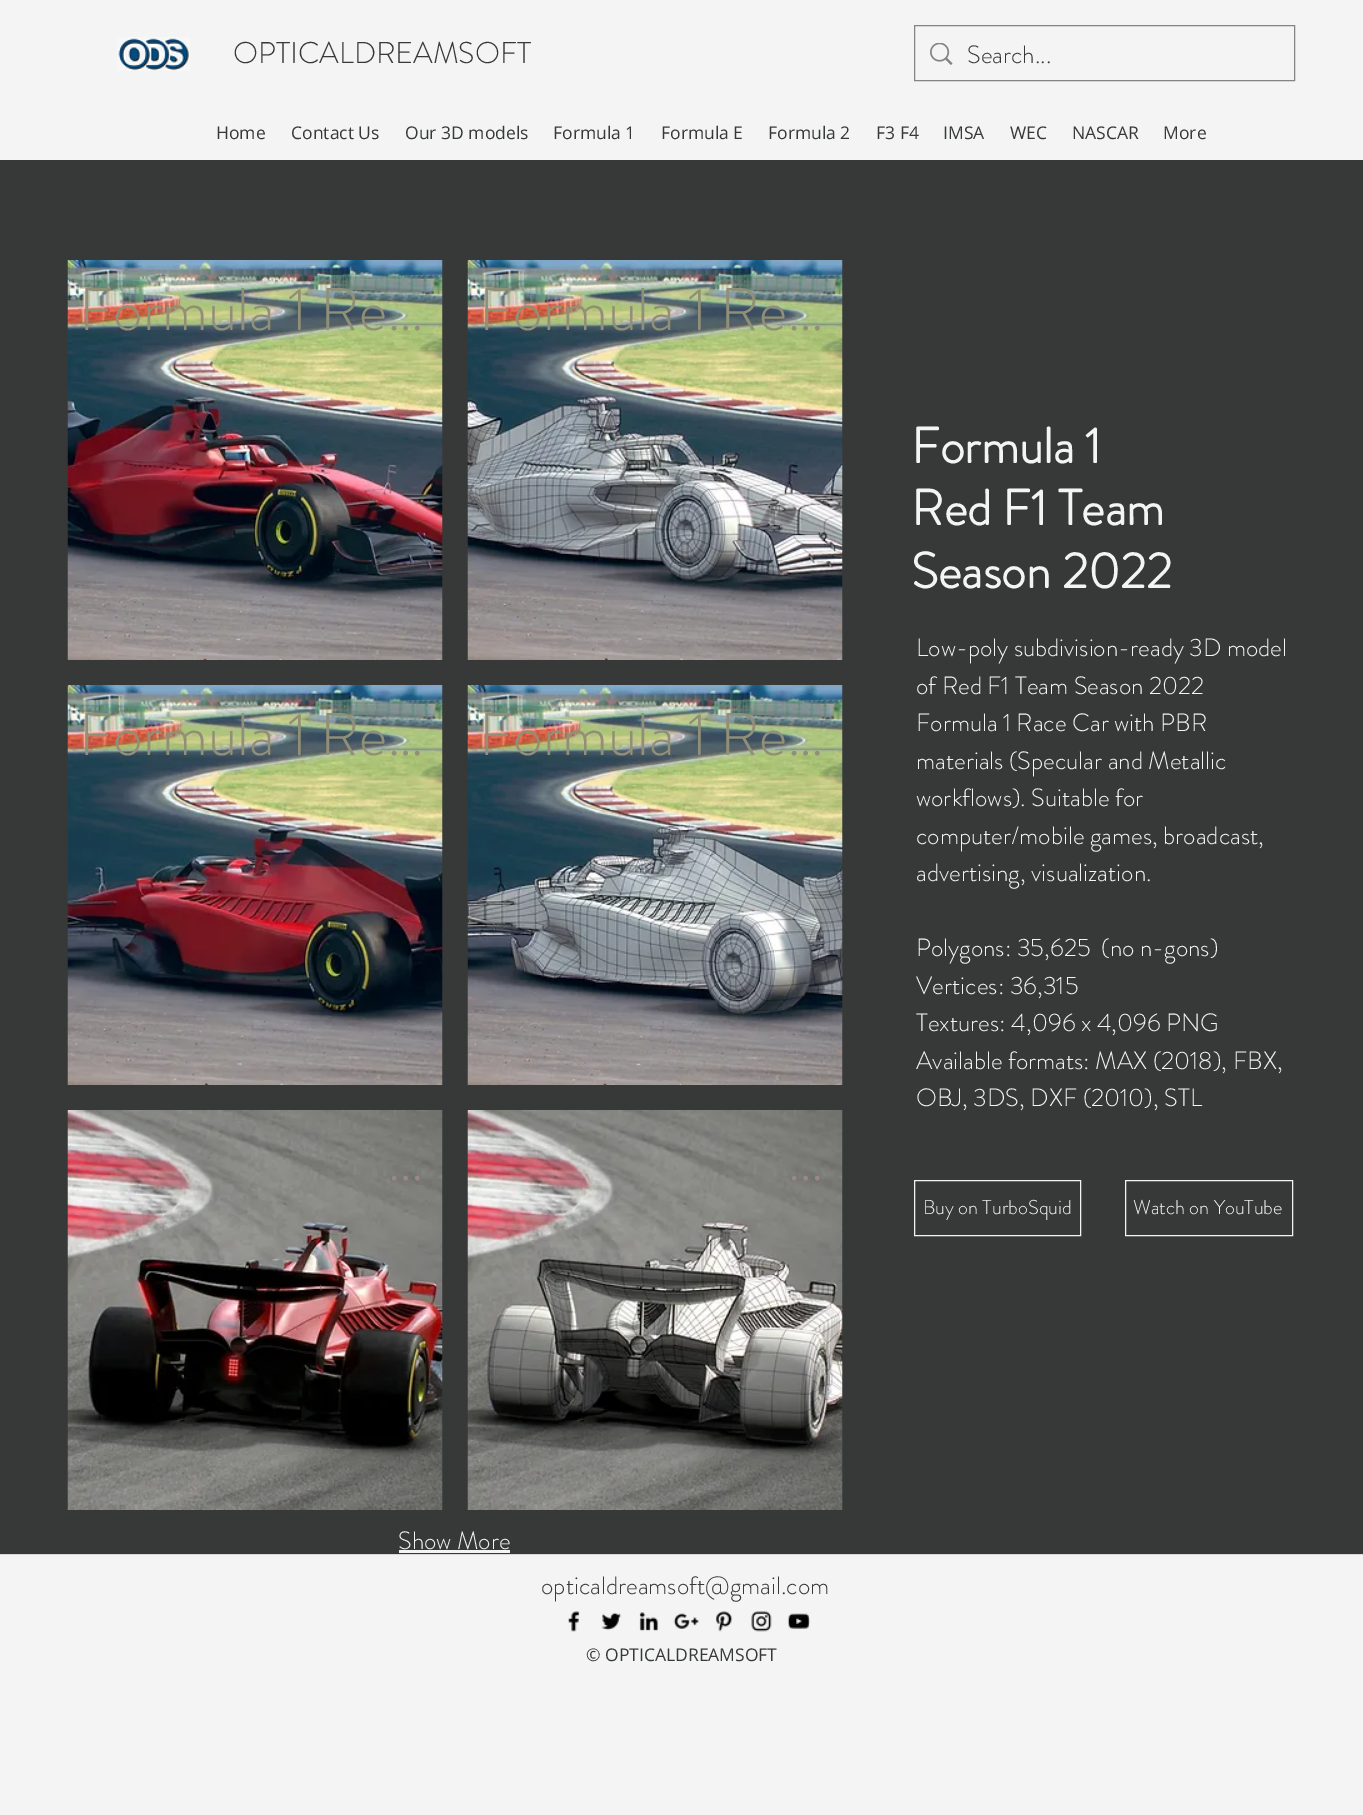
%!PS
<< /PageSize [1363 1815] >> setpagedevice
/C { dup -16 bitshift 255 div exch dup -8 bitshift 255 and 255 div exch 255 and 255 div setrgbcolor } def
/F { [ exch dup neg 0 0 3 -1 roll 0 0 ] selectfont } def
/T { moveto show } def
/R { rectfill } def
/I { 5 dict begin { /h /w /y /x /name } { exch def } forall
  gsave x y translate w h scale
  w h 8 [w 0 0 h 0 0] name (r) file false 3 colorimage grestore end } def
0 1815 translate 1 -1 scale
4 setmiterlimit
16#F4F4F4 C
0 0 1363 1815 R
(1.rgb) 117 37 73 34 I
/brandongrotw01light-Light 30 F
16#373939 C
(OPTICALDREAMSOFT) 233 63 T
16#838484 C
914.5 25.5 380 55 rectstroke
(2.rgb) 930 43 23 22 I
/brandongrotw01light-Light 25 F
16#373939 C
(Search...) 967 63 T
/OpenSans-Regular 17.5 F
(Home) 216 139 T
(Contact Us) 291 139 T
(Our 3D models) 405 139 T
(Formula 1) 553 139 T
(Formula E) 661 139 T
(Formula 2) 768 139 T
(F3 F4) 876 139 T
(IMSA) 943 139 T
(WEC) 1010 139 T
(NASCAR) 1072 139 T
(More) 1163 139 T
0 160 1363 1394 R
(3.rgb) 67 260 376 400 I
/brandongrotw01light-Light 60 F
16#918F77 C
(Formula 1 Re…) 79 330 T
(4.rgb) 467 260 376 400 I
(Formula 1 Re…) 479 330 T
(5.rgb) 67 685 376 400 I
(Formula 1 Re…) 79 755 T
(6.rgb) 467 685 376 400 I
(Formula 1 Re…) 479 755 T
(7.rgb) 67 1110 376 400 I
16#9A8786 C
(…) 387 1180 T
(8.rgb) 467 1110 376 400 I
(…) 787 1180 T
/brandongrotw01light-Light 25 F
16#F4F4F4 C
(Show More) 398 1549 T
399 1550 111 3 R
/brandongrotw01light-Bold 50 F
(Formula 1) 911 463 T
(Red F1 Team) 911 525 T
(Season 2022) 911 588 T
/brandongrotw01light-Light 25 F
(Low-poly subdivision-ready 3D model) 916 656 T
(of Red F1 Team Season 2022) 916 694 T
(Formula 1 Race Car with PBR) 916 731 T
(materials \(Specular and Metallic) 916 769 T
(workflows\). Suitable for) 916 806 T
(computer/mobile games, broadcast,) 916 844 T
(advertising, visualization.) 916 881 T
(Polygons: 35,625  \(no n-gons\)) 916 956 T
(Vertices: 36,315) 916 994 T
(Textures: 4,096 x 4,096 PNG) 916 1031 T
(Available formats: MAX \(2018\), FBX,) 916 1069 T
(OBJ, 3DS, DXF \(2010\), STL) 916 1106 T
914.5 1180.5 166 55 rectstroke
/brandongrotw01light-Light 20 F
(Buy on TurboSquid) 923 1214 T
1125.5 1180.5 167 55 rectstroke
(Watch on YouTube) 1133 1214 T
16#D8D8D8 C
0 1554 1363 1 R
/brandongrotw01light-Light 25 F
16#373939 C
(opticaldreamsoft@gmail.com) 541 1594 T
(9.rgb) 568 1611 12 21 I
(10.rgb) 601 1612 21 19 I
(11.rgb) 639 1612 20 19 I
(12.rgb) 673 1613 26 16 I
(13.rgb) 716 1611 17 21 I
(14.rgb) 751 1611 21 21 I
(15.rgb) 787 1613 23 16 I
/OpenSans-Regular 17.5 F
(© OPTICALDREAMSOFT) 586 1661 T
showpage
